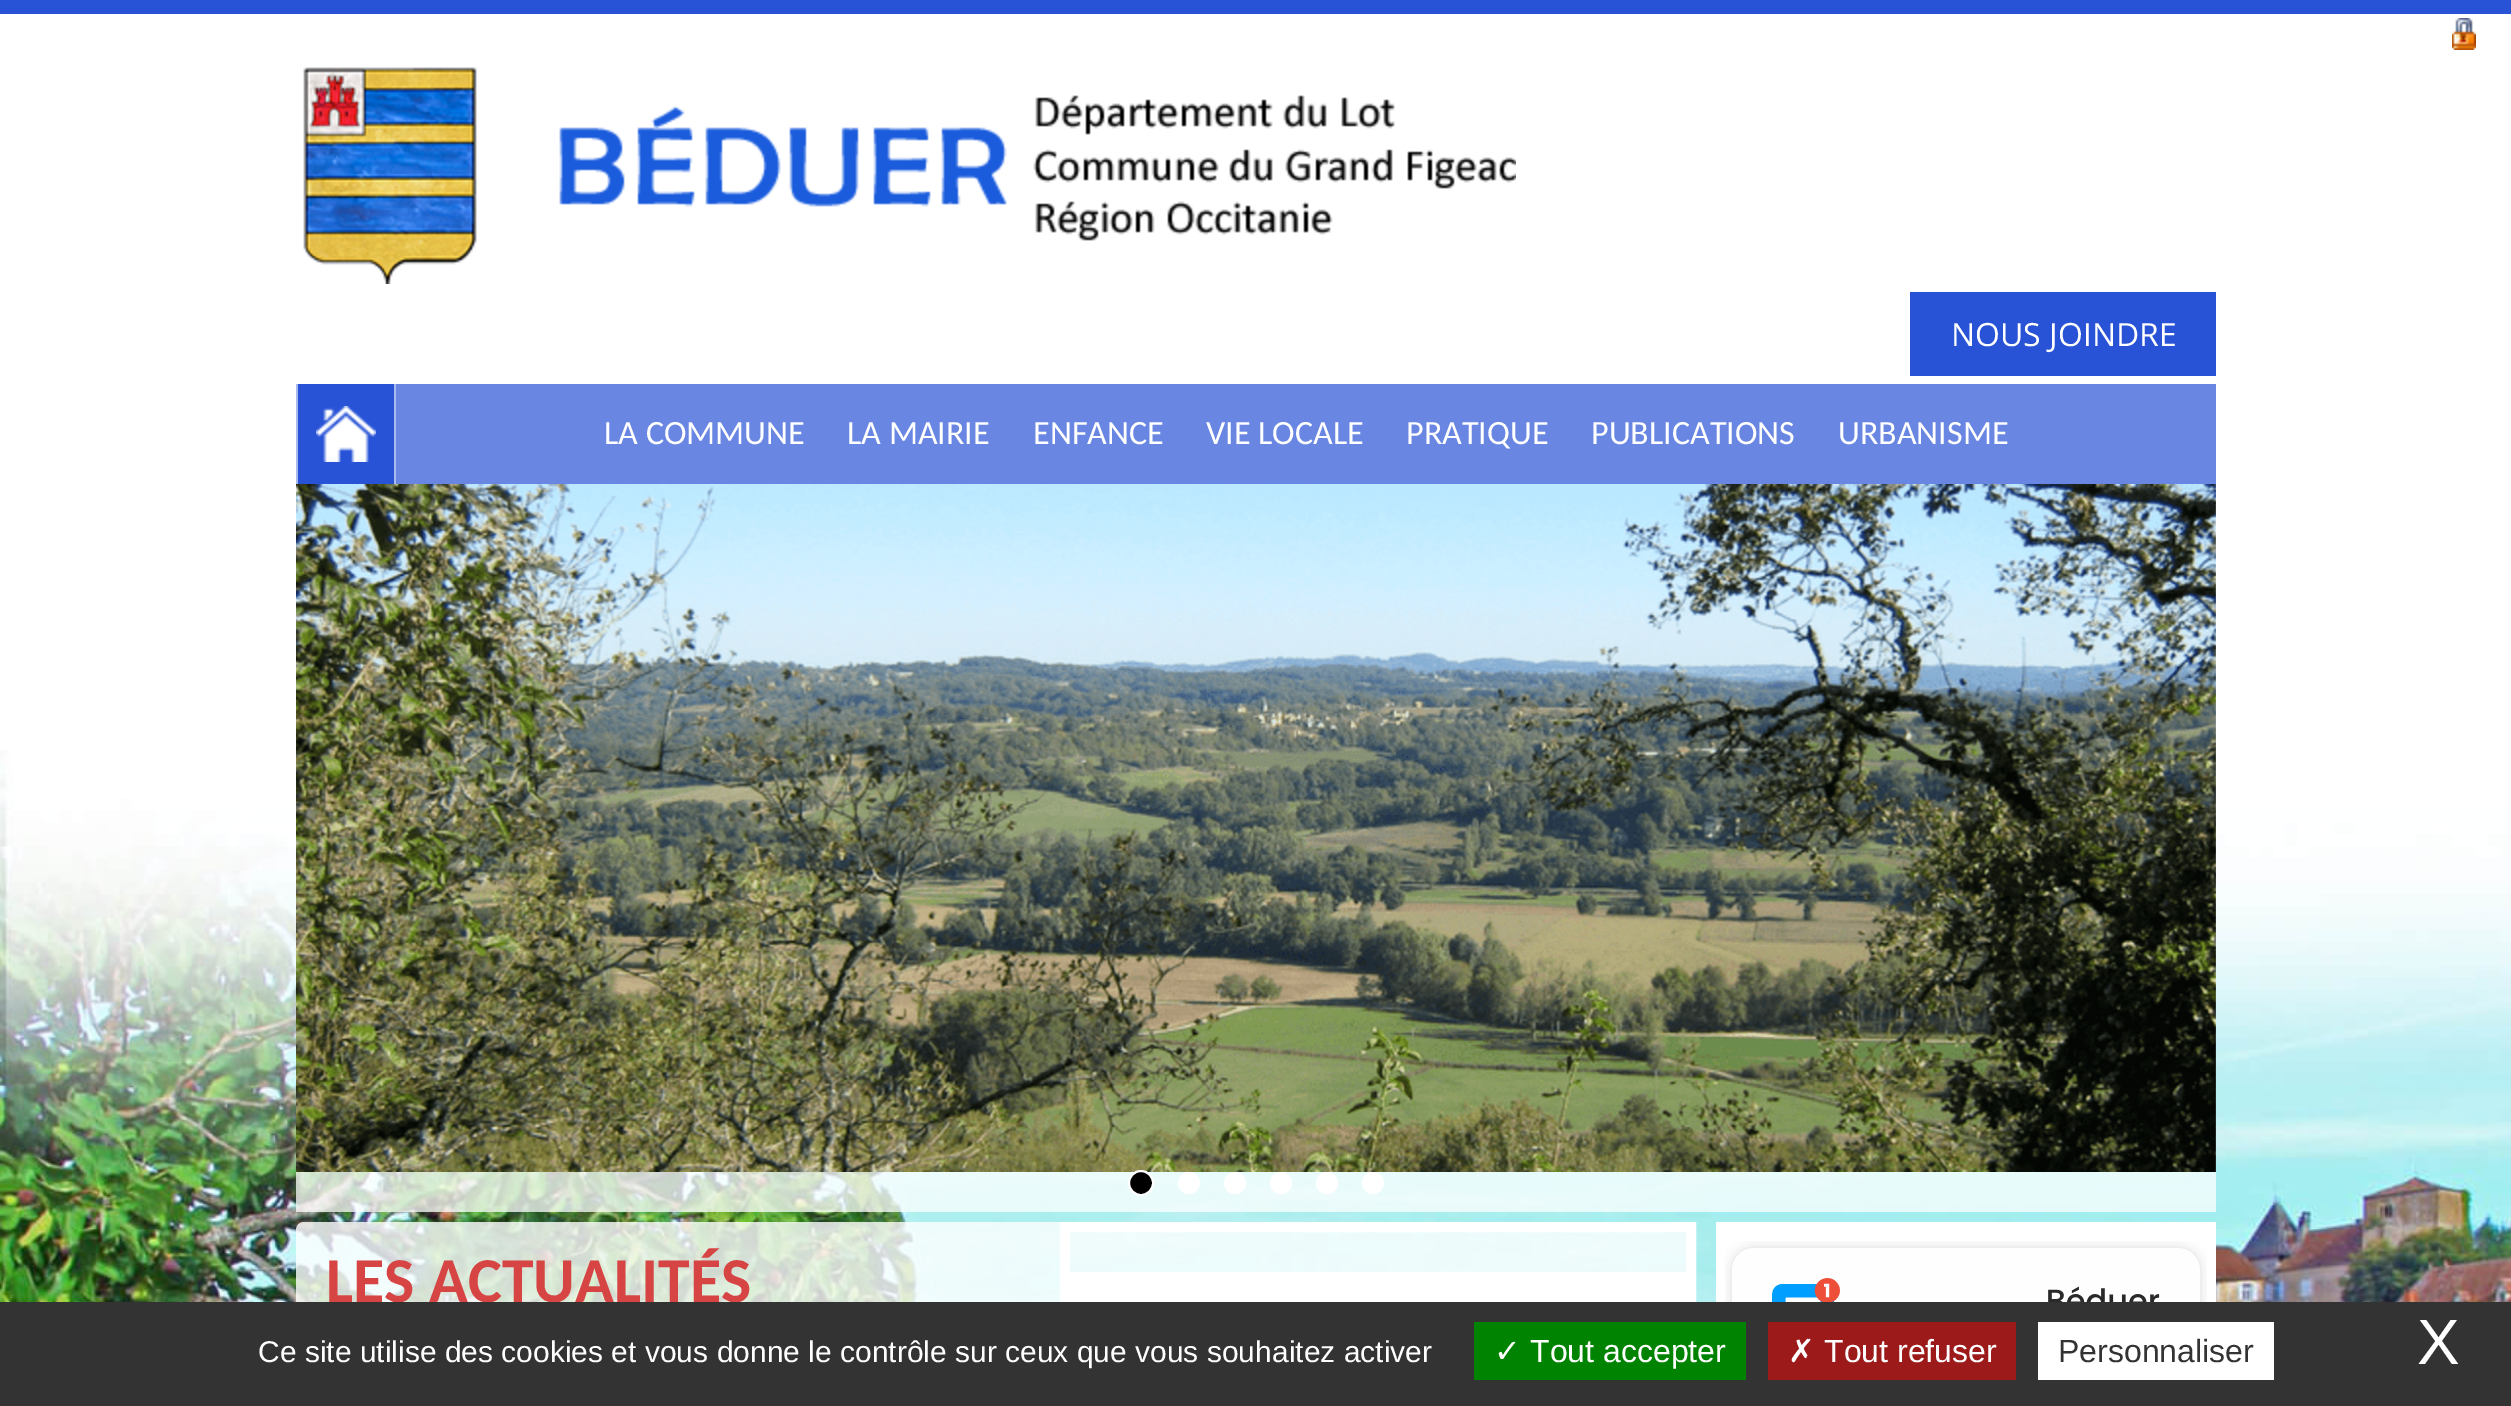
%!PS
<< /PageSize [2511 1406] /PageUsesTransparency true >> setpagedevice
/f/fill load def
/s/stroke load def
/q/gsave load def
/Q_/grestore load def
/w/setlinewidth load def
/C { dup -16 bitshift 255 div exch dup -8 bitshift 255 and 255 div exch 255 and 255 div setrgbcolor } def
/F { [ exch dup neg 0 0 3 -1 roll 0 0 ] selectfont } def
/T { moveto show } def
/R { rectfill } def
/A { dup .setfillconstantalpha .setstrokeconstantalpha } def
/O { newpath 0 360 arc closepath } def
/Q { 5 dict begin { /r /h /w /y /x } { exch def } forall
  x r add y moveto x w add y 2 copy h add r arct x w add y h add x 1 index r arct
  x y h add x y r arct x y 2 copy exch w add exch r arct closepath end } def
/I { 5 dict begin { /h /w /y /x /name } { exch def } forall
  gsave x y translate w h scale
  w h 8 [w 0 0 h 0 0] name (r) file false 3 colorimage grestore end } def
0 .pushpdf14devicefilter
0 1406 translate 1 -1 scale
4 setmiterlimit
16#FFFFFF C
0 0 2511 1406 R
(1.rgb) 2452 18 24 32 I
(2.rgb) 0 750 2511 552 I
16#2853D6 C
0 0 2511 14 R
(3.rgb) 303 67 1213 217 I
1910 292 306 84 R
/OpenSans-Regular 32 F
16#FFFFFF C
(NOUS JOINDRE) 1951 346 T
16#6987E2 C
396 384 1820 100 R
16#2853D6 C
298 384 96 100 R
(4.rgb) 316 406 60 56 I
16#A9BAEF C
394 384 2 100 R
296 384 2 100 R
/Carlito-Regular 34 F
16#FFFFFF C
(LA COMMUNE) 604 444 T
(LA MAIRIE) 847 444 T
(ENFANCE) 1033 444 T
(VIE LOCALE) 1206 444 T
(PRATIQUE) 1406 444 T
(PUBLICATIONS) 1591 444 T
(URBANISME) 1838 444 T
0.74 A
296 846 1920 366 R
1 A
(5.rgb) 296 484 1920 688 I
16#000000 C
1141 1183 12 O q f Q_
16#FFFFFF C
2 w
s
1189 1183 11 O f
1235 1183 11 O f
1281 1183 11 O f
1327 1183 11 O f
1373 1183 11 O f
0.8 A
296 1222 1400 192 8 Q f
1 A
10 w
1065 1227 626 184 rectstroke
(6.rgb) 1070 1272 616 30 I
/Carlito-Bold 64 F
16#D64444 C
(LES ACTUALITÉS) 326 1302 T
16#FFFFFF C
1716 1222 500 80 R
(7.rgb) 1725 1241 482 61 I
16#333333 C
0 1302 2511 104 R
/LiberationSans-Regular 30 F
16#FFFFFF C
(Ce site utilise des cookies et vous donne le contrôle sur ceux que vous souhaitez activer) 258 1362 T
16#008300 C
1474 1322 272 58 R
/DejaVuSans-Regular 32 F
16#FFFFFF C
(✓) 1494 1362 T
/LiberationSans-Regular 32 F
(Tout accepter) 1530 1362 T
16#9C1A1A C
1768 1322 248 58 R
/DejaVuSans-Regular 32 F
16#FFFFFF C
(✗) 1788 1362 T
/LiberationSans-Regular 32 F
(Tout refuser) 1824 1362 T
2038 1322 236 58 R
16#333333 C
(Personnaliser) 2058 1362 T
/LiberationSans-Regular 64 F
16#FFFFFF C
(X) 2417 1364 T
.poppdf14devicefilter showpage
